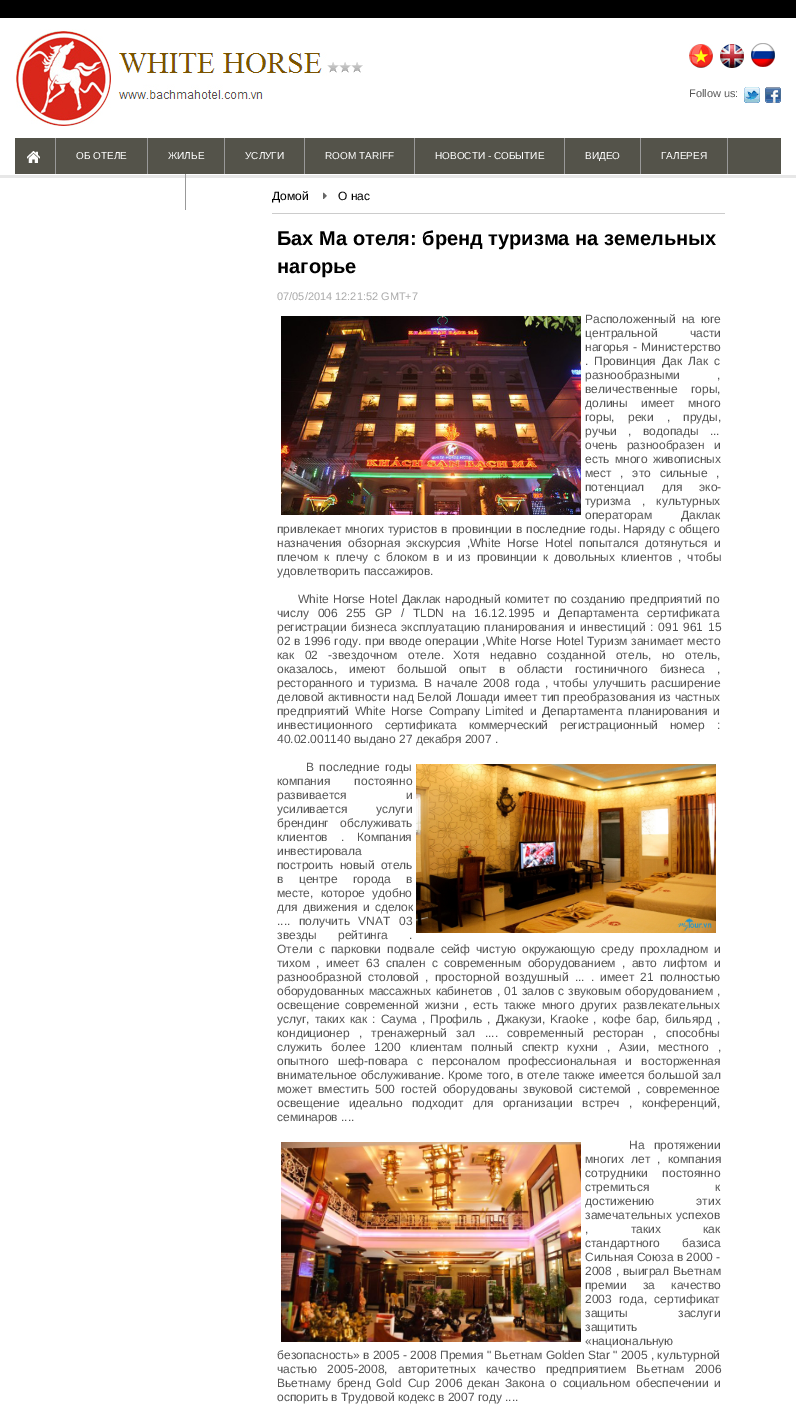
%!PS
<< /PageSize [796 1419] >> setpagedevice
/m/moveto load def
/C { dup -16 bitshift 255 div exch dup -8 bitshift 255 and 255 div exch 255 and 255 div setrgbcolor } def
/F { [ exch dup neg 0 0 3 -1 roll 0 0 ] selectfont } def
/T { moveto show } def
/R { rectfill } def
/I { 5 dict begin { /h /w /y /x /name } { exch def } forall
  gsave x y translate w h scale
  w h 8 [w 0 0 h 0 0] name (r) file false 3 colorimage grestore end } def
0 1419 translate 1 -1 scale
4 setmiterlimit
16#FFFFFF C
0 0 796 1419 R
16#E7E7E7 C
0 175 796 3 R
16#000000 C
0 0 796 18 R
(1.rgb) 16 29 347 97 I
(2.rgb) 689 44 24 24 I
(3.rgb) 720 44 24 24 I
(4.rgb) 751 43 24 24 I
/LiberationSans-Regular 11 F
16#555555 C
(Follow us:) 689 97 T
(5.rgb) 744 87 16 16 I
(6.rgb) 765 87 16 16 I
16#54534A C
15 138 766 36 R
16#999999 C
55 138 1 36 R
(7.rgb) 27 151 13 12 I
147 138 1 36 R
/LiberationSans-Regular 10 F
16#FFFFFF C
(ОБ ОТЕЛЕ) 76 159 T
16#999999 C
224 138 1 36 R
16#FFFFFF C
(ЖИЛЬЕ) 168 159 T
16#999999 C
304 138 1 36 R
16#FFFFFF C
(УСЛУГИ) 245 159 T
16#999999 C
414 138 1 36 R
16#FFFFFF C
(ROOM TARIFF) 325 159 T
16#999999 C
564 138 1 36 R
16#FFFFFF C
(НОВОСТИ - СОБЫТИЕ) 435 159 T
16#999999 C
640 138 1 36 R
16#FFFFFF C
(ВИДЕО) 585 159 T
16#999999 C
727 138 1 36 R
16#FFFFFF C
(ГАЛЕРЕЯ) 661 159 T
16#999999 C
185 174 1 36 R
16#CCCCCC C
272 213 453 1 R
(8.rgb) 323 192 4 7 I
/LiberationSans-Regular 12 F
16#000000 C
(Домой) 272 200 T
(О нас) 338 200 T
/LiberationSans-Bold 20 F
(Бах Ма отеля: бренд туризма на земельных) 277 245 T
(нагорье) 277 273 T
/LiberationSans-Regular 11 F
16#AAAAAA C
(07/05/2014 12:21:52 GMT+7) 277 300 T
(9.rgb) 281 316 300 199 I
/LiberationSans-Regular 12 F
16#555555 C
585 323 m 2.5 0 32 (Расположенный на юге) widthshow
585 337 m 29 0 32 (центральной части) widthshow
585 351 m 1 0 32 (нагорья - Министерство) widthshow
(.) 585 365 T
594 365 m 2.75 0 32 (Провинция Дак Лак с) widthshow
585 379 m 34 0 32 (разнообразными ,) widthshow
585 393 m 10 0 32 (величественные горы,) widthshow
585 407 m 10 0 32 (долины имеет много) widthshow
585 421 m 10 0 32 (горы, реки , пруды,) widthshow
585 435 m 8 0 32 (ручьи , водопады ...) widthshow
585 449 m 6 0 32 (очень разнообразен и) widthshow
585 463 m 2 0 32 (есть много живописных) widthshow
585 477 m 5.5 0 32 (мест , это сильные ,) widthshow
585 491 m 14 0 32 (потенциал для эко-) widthshow
585 505 m 8 0 32 (туризма , культурных) widthshow
585 519 m 26 0 32 (операторам Даклак) widthshow
277 533 m .75 0 32 (привлекает многих туристов в провинции в последние годы.) widthshow
623 533 m .75 0 32 (Наряду с общего) widthshow
277 547 m 2.75 0 32 (назначения обзорная экскурсия ,White Horse Hotel попытался дотянуться и) widthshow
277 561 m 2.75 0 32 (плечом к плечу с блоком в и из провинции к довольных клиентов , чтобы) widthshow
(удовлетворить пассажиров.) 277 575 T
298 603 m 1 0 32 (White Horse Hotel Даклак народный комитет по созданию предприятий по) widthshow
277 617 m 5.25 0 32 (числу 006 255 GP / TLDN на 16.12.1995 и Департамента сертификата) widthshow
277 631 m 1.5 0 32 (регистрации бизнеса эксплуатацию планирования и инвестиций : 091 961 15) widthshow
(02) 277 645 T
294 645 m .25 0 32 (в 1996 году. при вводе операции ,White Horse Hotel Туризм занимает место) widthshow
277 659 m 7 0 32 (как 02 -звездочном отеле.) widthshow
453 659 m 7 0 32 (Хотя недавно созданной отель, но отель,) widthshow
277 673 m 8.75 0 32 (оказалось, имеют большой опыт в области гостиничного бизнеса ,) widthshow
277 687 m 2 0 32 (ресторанного и туризма.) widthshow
424 687 m 2 0 32 (В начале 2008 года , чтобы улучшить расширение) widthshow
277 701 m .25 0 32 (деловой активности над Белой Лошади имеет тип преобразования из частных) widthshow
277 715 m 2.25 0 32 (предприятий White Horse Company Limited и Департамента планирования и) widthshow
277 729 m 8.5 0 32 (инвестиционного сертификата коммерческий регистрационный номер) widthshow
(:) 717 729 T
(40.02.001140 выдано 27 декабря 2007 .) 277 743 T
(10.rgb) 416 764 300 169 I
306 771 m 2 0 32 (В последние годы) widthshow
277 785 m 21 0 32 (компания постоянно) widthshow
277 799 m 56 0 32 (развивается и) widthshow
277 813 m 26 0 32 (усиливается услуги) widthshow
277 827 m 8.5 0 32 (брендинг обслуживать) widthshow
277 841 m 10 0 32 (клиентов .) widthshow
(Компания) 357 841 T
(инвестировала) 277 855 T
277 869 m 2.75 0 32 (построить новый отель) widthshow
277 883 m 12 0 32 (в центре города в) widthshow
277 897 m 4 0 32 (месте, которое удобно) widthshow
277 911 m 2 0 32 (для движения и сделок) widthshow
277 925 m 5.25 0 32 (.... получить VNAT 03) widthshow
277 939 m 18 0 32 (звезды рейтинга .) widthshow
277 953 m 3 0 32 (Отели с парковки подвале сейф чистую окружающую среду прохладном и) widthshow
277 967 m 3 0 32 (тихом , имеет 63 спален с современным оборудованием , авто лифтом и) widthshow
277 981 m 2.75 0 32 (разнообразной столовой , просторной воздушный ...) widthshow
591 981 m 2.75 0 32 (. имеет 21 полностью) widthshow
277 995 m .75 0 32 (оборудованных массажных кабинетов , 01 залов с звуковым оборудованием ,) widthshow
277 1009 m 2.5 0 32 (освещение современной жизни , есть также много других развлекательных) widthshow
277 1023 m 1.75 0 32 (услуг, таких как : Саума , Профиль , Джакузи, Kraoke , кофе) widthshow
636 1023 m 2 0 32 (бар, бильярд ,) widthshow
277 1037 m 6 0 32 (кондиционер , тренажерный зал .... современный ресторан , способны) widthshow
277 1051 m 5.5 0 32 (служить более 1200 клиентам полный спектр кухни , Азии, местного ,) widthshow
277 1065 m 6 0 32 (опытного шеф-повара с персоналом) widthshow
508 1065 m 6 0 32 (профессиональная и восторженная) widthshow
277 1079 m .25 0 32 (внимательное обслуживание. Кроме того, в отеле также имеется большой зал) widthshow
277 1093 m 2.5 0 32 (может вместить 500 гостей оборудованы звуковой системой , современное) widthshow
277 1107 m 6 0 32 (освещение идеально подходит для организации встреч , конференций,) widthshow
(семинаров ....) 277 1121 T
(11.rgb) 281 1142 300 200 I
629 1149 m 6 0 32 (На протяжении) widthshow
585 1163 m 4 0 32 (многих лет , компания) widthshow
585 1177 m 11 0 32 (сотрудники постоянно) widthshow
585 1191 m 63 0 32 (стремиться к) widthshow
585 1205 m 39 0 32 (достижению этих) widthshow
585 1219 m 1 0 32 (замечательных успехов) widthshow
585 1233 m 39 0 32 (, таких как) widthshow
585 1247 m 19 0 32 (стандартного базиса) widthshow
(Сильная Союза в 2000 -) 585 1261 T
585 1275 m .5 0 32 (2008 , выиграл Вьетнам) widthshow
585 1289 m 13 0 32 (премии за качество) widthshow
585 1303 m 4 0 32 (2003 года, сертификат) widthshow
585 1317 m 47 0 32 (защиты заслуги) widthshow
(защитить) 585 1331 T
(«национальную) 585 1345 T
(безопасность» в 2005 - 2008 Премия " Вьетнам Golden Star " 2005 , культурной) 277 1359 T
277 1373 m 7 0 32 (частью 2005-2008, авторитетных качество предприятием Вьетнам 2006) widthshow
277 1387 m 2.5 0 32 (Вьетнаму бренд Gold Cup 2006) widthshow
467 1387 m 2.5 0 32 (декан Закона о социальном обеспечении и) widthshow
(оспорить в Трудовой кодекс в 2007 году ....) 277 1401 T
showpage
